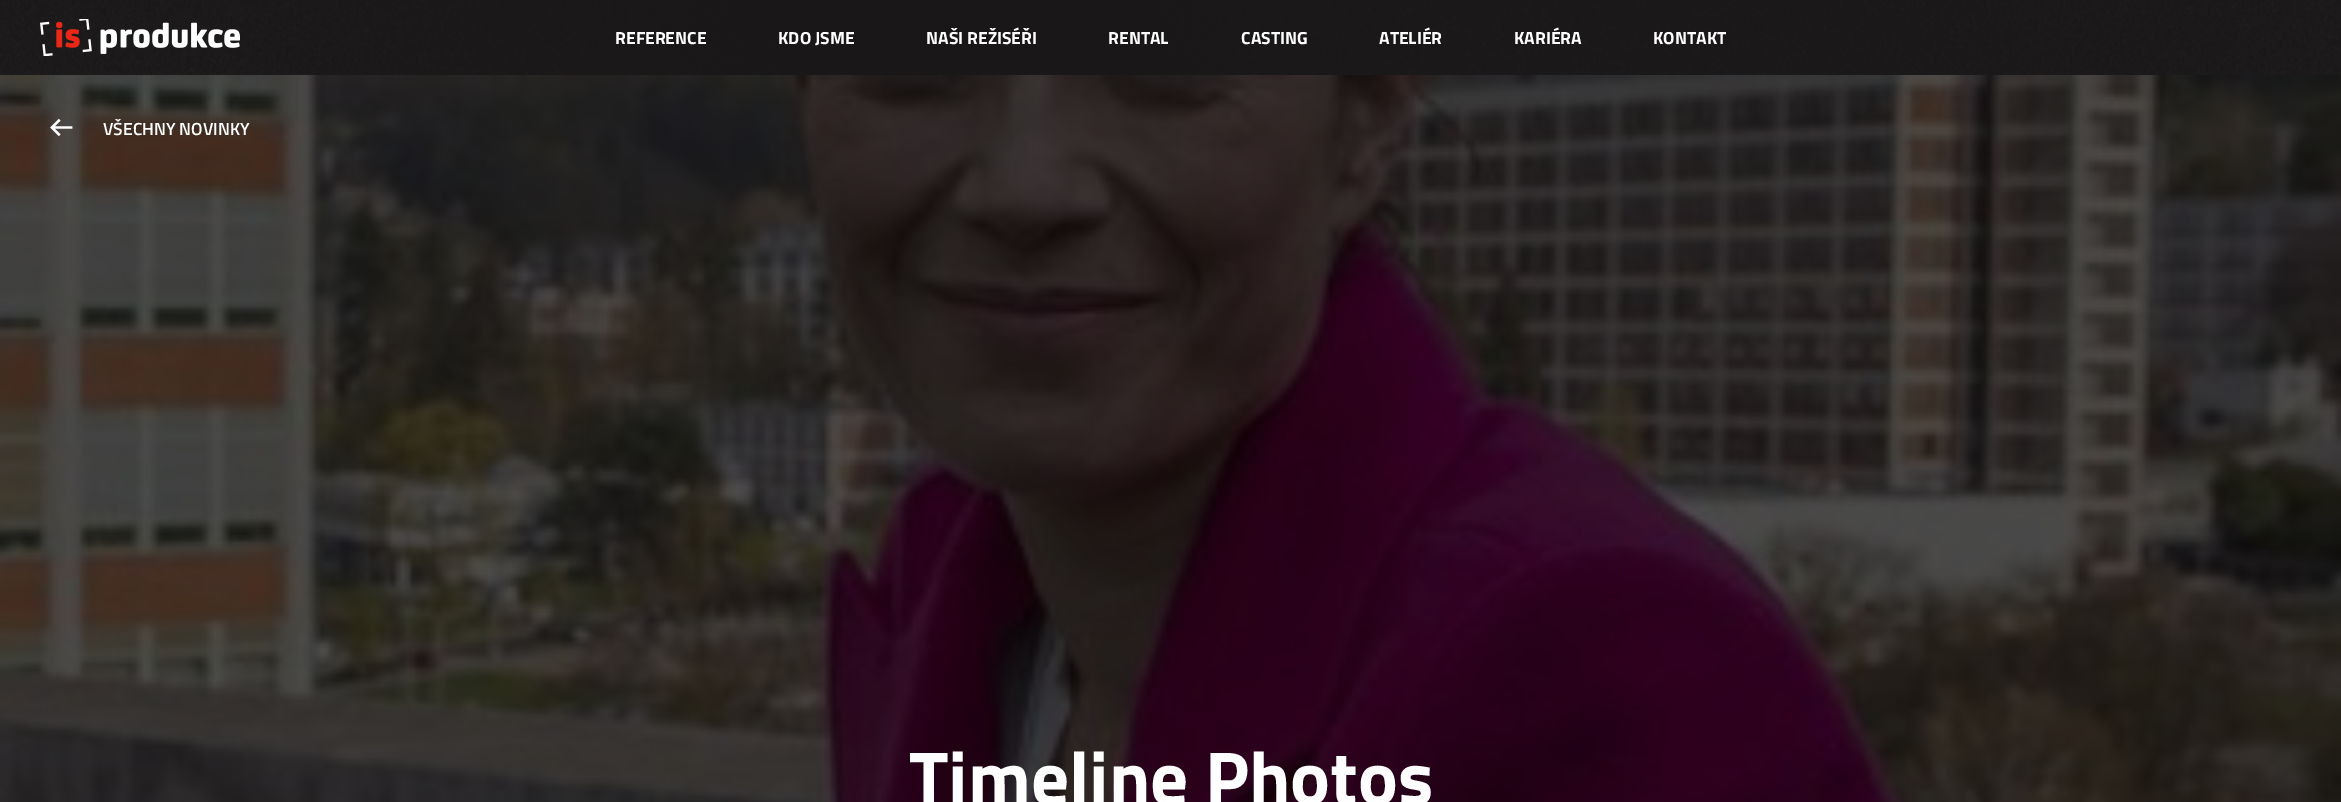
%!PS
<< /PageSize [2341 802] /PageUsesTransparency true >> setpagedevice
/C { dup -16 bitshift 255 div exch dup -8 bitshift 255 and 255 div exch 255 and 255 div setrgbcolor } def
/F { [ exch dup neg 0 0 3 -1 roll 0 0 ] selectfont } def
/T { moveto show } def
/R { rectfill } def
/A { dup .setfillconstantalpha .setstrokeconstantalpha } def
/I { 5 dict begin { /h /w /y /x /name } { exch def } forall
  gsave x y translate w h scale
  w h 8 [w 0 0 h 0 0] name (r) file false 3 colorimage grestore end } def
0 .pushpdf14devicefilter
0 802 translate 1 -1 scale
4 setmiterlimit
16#1A1818 C
0 0 2341 802 R
(1.rgb) 0 0 2341 75 I
0.85 A
0 0 2341 75 R
1 A
(2.rgb) 40 19 200 37 I
/TitilliumWeb-Bold 17.5 F
16#FFFFFF C
(REFERENCE) 615 44 T
(KDO JSME) 778 44 T
(NAŠI REŽISÉŘI) 926 44 T
(RENTAL) 1108 44 T
(CASTING) 1241 44 T
(ATELIÉR) 1379 44 T
(KARIÉRA) 1514 44 T
(KONTAKT) 1653 44 T
(3.rgb) 0 75 2341 727 I
(4.rgb) 50 119 23 17 I
/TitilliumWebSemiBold-SemiBold 17.5 F
(VŠECHNY NOVINKY) 103 135 T
/TitilliumWeb-Bold 75 F
(Timeline Photos) 909 804 T
.poppdf14devicefilter showpage
